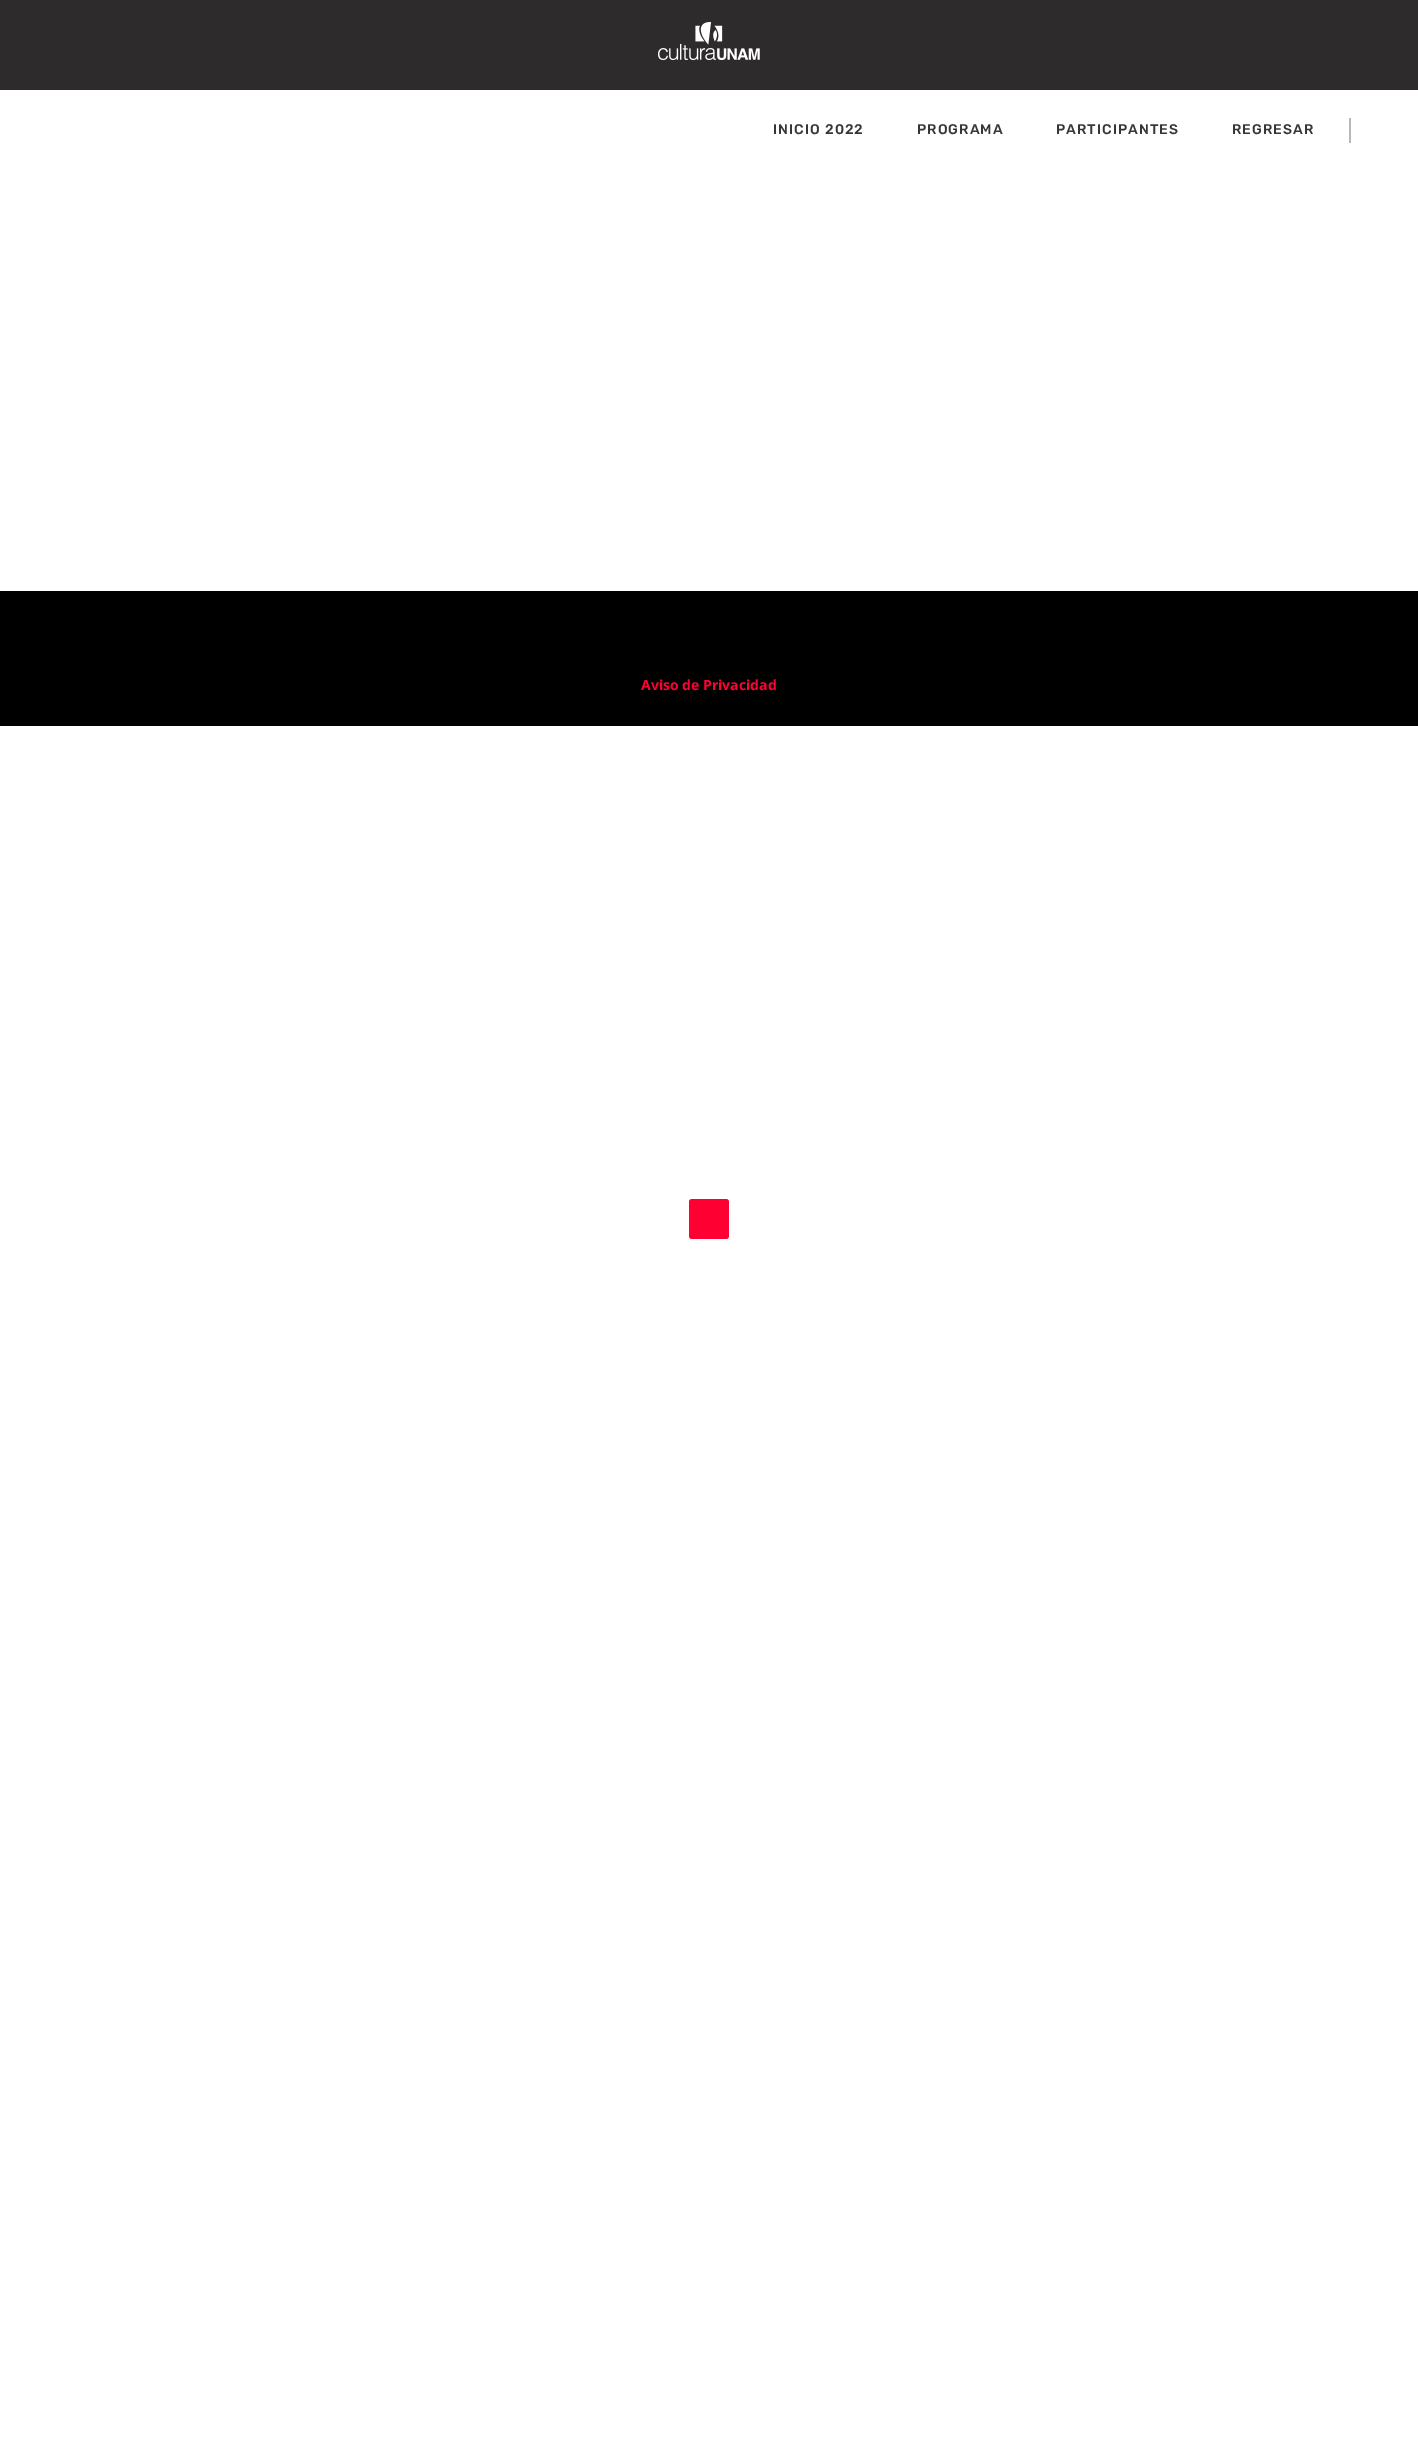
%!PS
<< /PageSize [1418 2446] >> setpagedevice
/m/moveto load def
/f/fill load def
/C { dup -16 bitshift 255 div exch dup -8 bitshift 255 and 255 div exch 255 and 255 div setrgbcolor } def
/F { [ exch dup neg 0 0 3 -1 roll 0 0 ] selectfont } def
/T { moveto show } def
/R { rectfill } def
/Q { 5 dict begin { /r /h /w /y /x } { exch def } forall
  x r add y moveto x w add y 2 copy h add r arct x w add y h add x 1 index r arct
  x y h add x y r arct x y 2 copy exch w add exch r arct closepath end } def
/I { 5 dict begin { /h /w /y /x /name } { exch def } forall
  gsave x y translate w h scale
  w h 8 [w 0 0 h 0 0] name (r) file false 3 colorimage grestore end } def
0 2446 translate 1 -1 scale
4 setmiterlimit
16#FFFFFF C
0 0 1418 2446 R
16#2D2B2C C
0 0 1418 90 R
(1.rgb) 658 22 102 38 I
/Rubik-Medium 14 F
16#373635 C
773 134 m 1 0 (INICIO 2022) ashow
917 134 m 1 0 (PROGRAMA) ashow
1056 134 m 1 0 (PARTICIPANTES) ashow
1232 134 m 1 0 (REGRESAR) ashow
16#B8B8B8 C
1349 118 2 25 R
16#000000 C
0 591 1418 135 R
/OpenSans-Bold 14 F
16#FF0033 C
(Aviso de Privacidad) 641 690 T
689 1199 40 40 3 Q f
showpage
